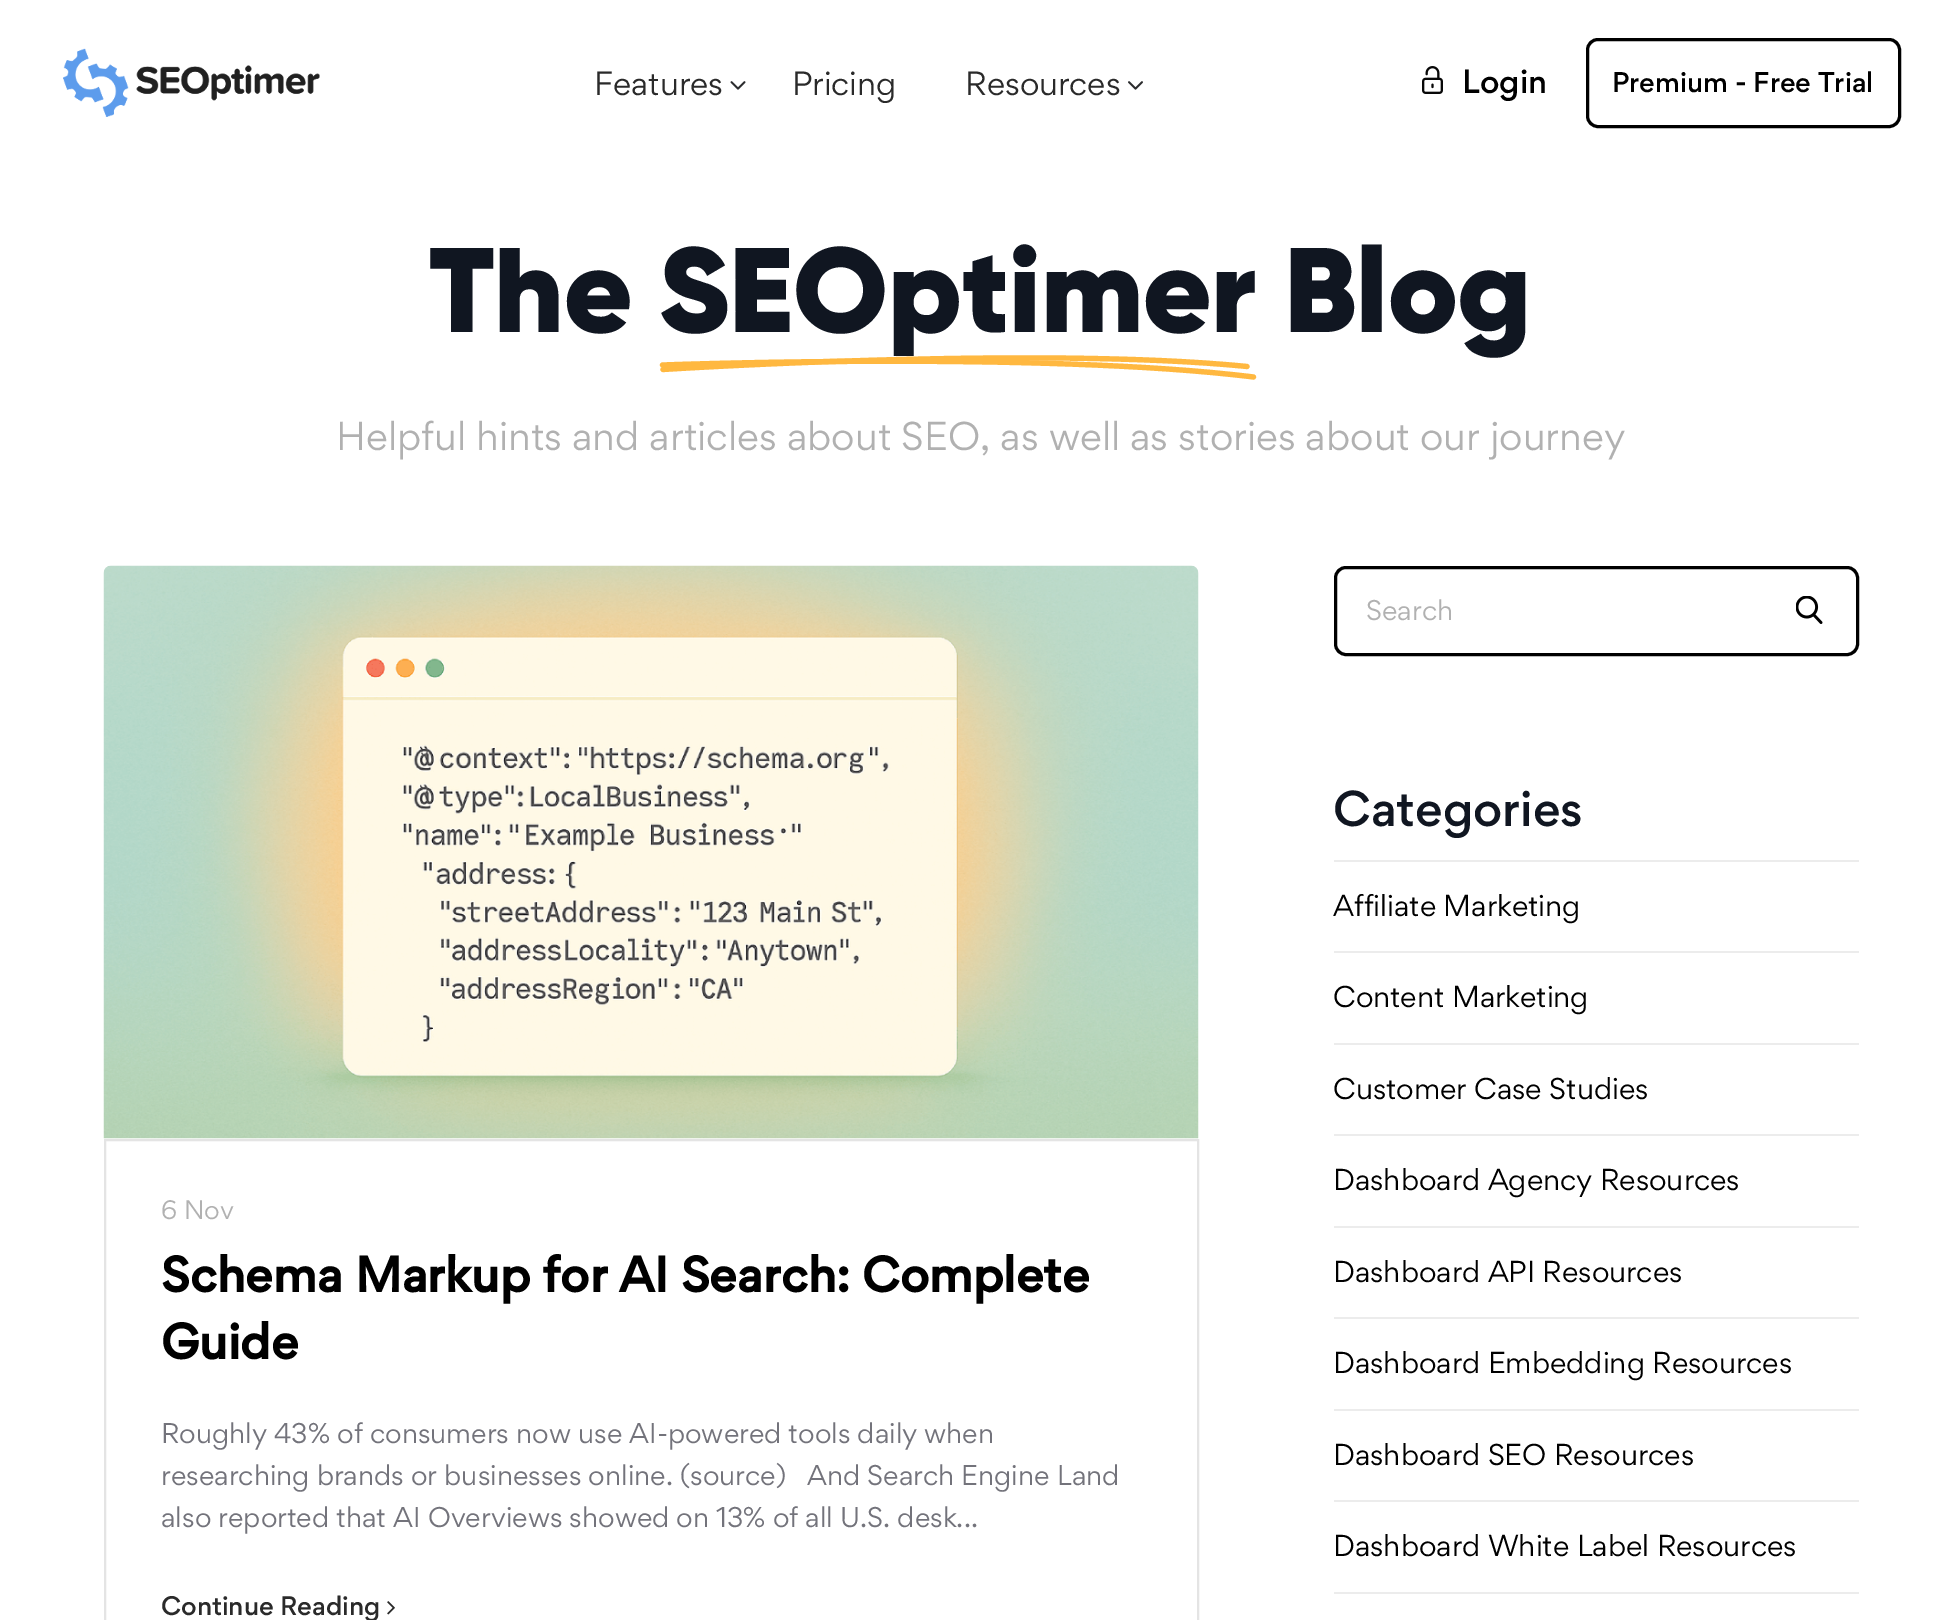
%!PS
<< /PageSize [1960 1620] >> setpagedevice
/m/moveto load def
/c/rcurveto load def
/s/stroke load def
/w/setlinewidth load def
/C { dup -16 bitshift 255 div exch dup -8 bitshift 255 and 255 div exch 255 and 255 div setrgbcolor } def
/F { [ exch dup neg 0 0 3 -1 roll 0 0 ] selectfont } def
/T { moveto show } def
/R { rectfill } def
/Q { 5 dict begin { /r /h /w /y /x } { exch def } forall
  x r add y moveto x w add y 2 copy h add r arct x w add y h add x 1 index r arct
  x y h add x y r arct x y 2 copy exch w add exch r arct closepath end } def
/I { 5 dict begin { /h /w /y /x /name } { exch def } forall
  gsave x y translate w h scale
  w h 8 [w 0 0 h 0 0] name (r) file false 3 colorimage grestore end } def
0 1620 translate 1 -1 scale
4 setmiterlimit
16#FFFFFF C
0 0 1960 1620 R
(1.rgb) 63 48 257 69 I
/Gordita-Regular 30 F
16#2A2A2A C
(Features) 594 95 T
(2.rgb) 730 81 16 9 I
(Pricing) 792 95 T
(Resources) 965 95 T
(3.rgb) 1128 81 15 9 I
(4.rgb) 1422 66 21 28 I
/Gordita-Medium 30 F
16#000000 C
(Login) 1462 93 T
3 w
1587.5 39.5 312 87 10.5 Q s
/Gordita-Medium 25.5 F
(Premium - Free Trial) 1612 92 T
/Gilroy-Black 120 F
16#101621 C
(The) 429 332 T
16#FFB840 C
5.2 w
1 setlinecap
663 369.5 m 0 0 374 -24 584 -3 c s
16#101621 C
(SEOptimer) 659 332 T
16#FFB840 C
662.5 365 m 0 0 381.5 -14 591 12 c s
16#101621 C
(Blog) 1284 332 T
/Gordita-Regular 36 F
16#B1B1B1 C
(Helpful hints and articles about SEO, as well as stories about our journey) 336 450 T
(5.rgb) 103 565 1096 574 I
16#E4E4E4 C
2 w
0 setlinecap
105 1140 1093 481 rectstroke
/Gordita-Regular 24 F
16#B1B1B1 C
(6 Nov) 161 1219 T
/Gordita-Bold 45 F
16#000000 C
(Schema Markup for AI Search: Complete) 161 1292 T
(Guide) 161 1359 T
/Gordita-Regular 25.5 F
16#73737B C
(Roughly 43% of consumers now use AI-powered tools daily when) 161 1443 T
(researching brands or businesses online. \(source\)) 161 1485 T
(And Search Engine Land) 807 1485 T
(also reported that AI Overviews showed on 13% of all U.S. desk...) 161 1527 T
/Gordita-Medium 24 F
16#2A2A2A C
(Continue Reading) 161 1615 T
(6.rgb) 387 1601 8 14 I
16#000000 C
3 w
1335.5 567.5 522 87 10.5 Q s
/Gordita-Regular 25.5 F
16#B1B1B1 C
(Search) 1366 620 T
(7.rgb) 1796 596 27 28 I
/Gordita-Medium 45 F
16#101621 C
(Categories) 1333 826 T
16#ECECEC C
1334 860 525 2 R
1334 951 525 2 R
/Gordita-Regular 27 F
16#000000 C
(Affiliate Marketing) 1333 916 T
16#ECECEC C
1334 1043 525 2 R
16#000000 C
(Content Marketing) 1333 1007 T
16#ECECEC C
1334 1134 525 2 R
16#000000 C
(Customer Case Studies) 1333 1099 T
16#ECECEC C
1334 1226 525 2 R
16#000000 C
(Dashboard Agency Resources) 1333 1190 T
16#ECECEC C
1334 1317 525 2 R
16#000000 C
(Dashboard API Resources) 1333 1282 T
16#ECECEC C
1334 1409 525 2 R
16#000000 C
(Dashboard Embedding Resources) 1333 1373 T
16#ECECEC C
1334 1500 525 2 R
16#000000 C
(Dashboard SEO Resources) 1333 1465 T
16#ECECEC C
1334 1592 525 2 R
16#000000 C
(Dashboard White Label Resources) 1333 1556 T
showpage
